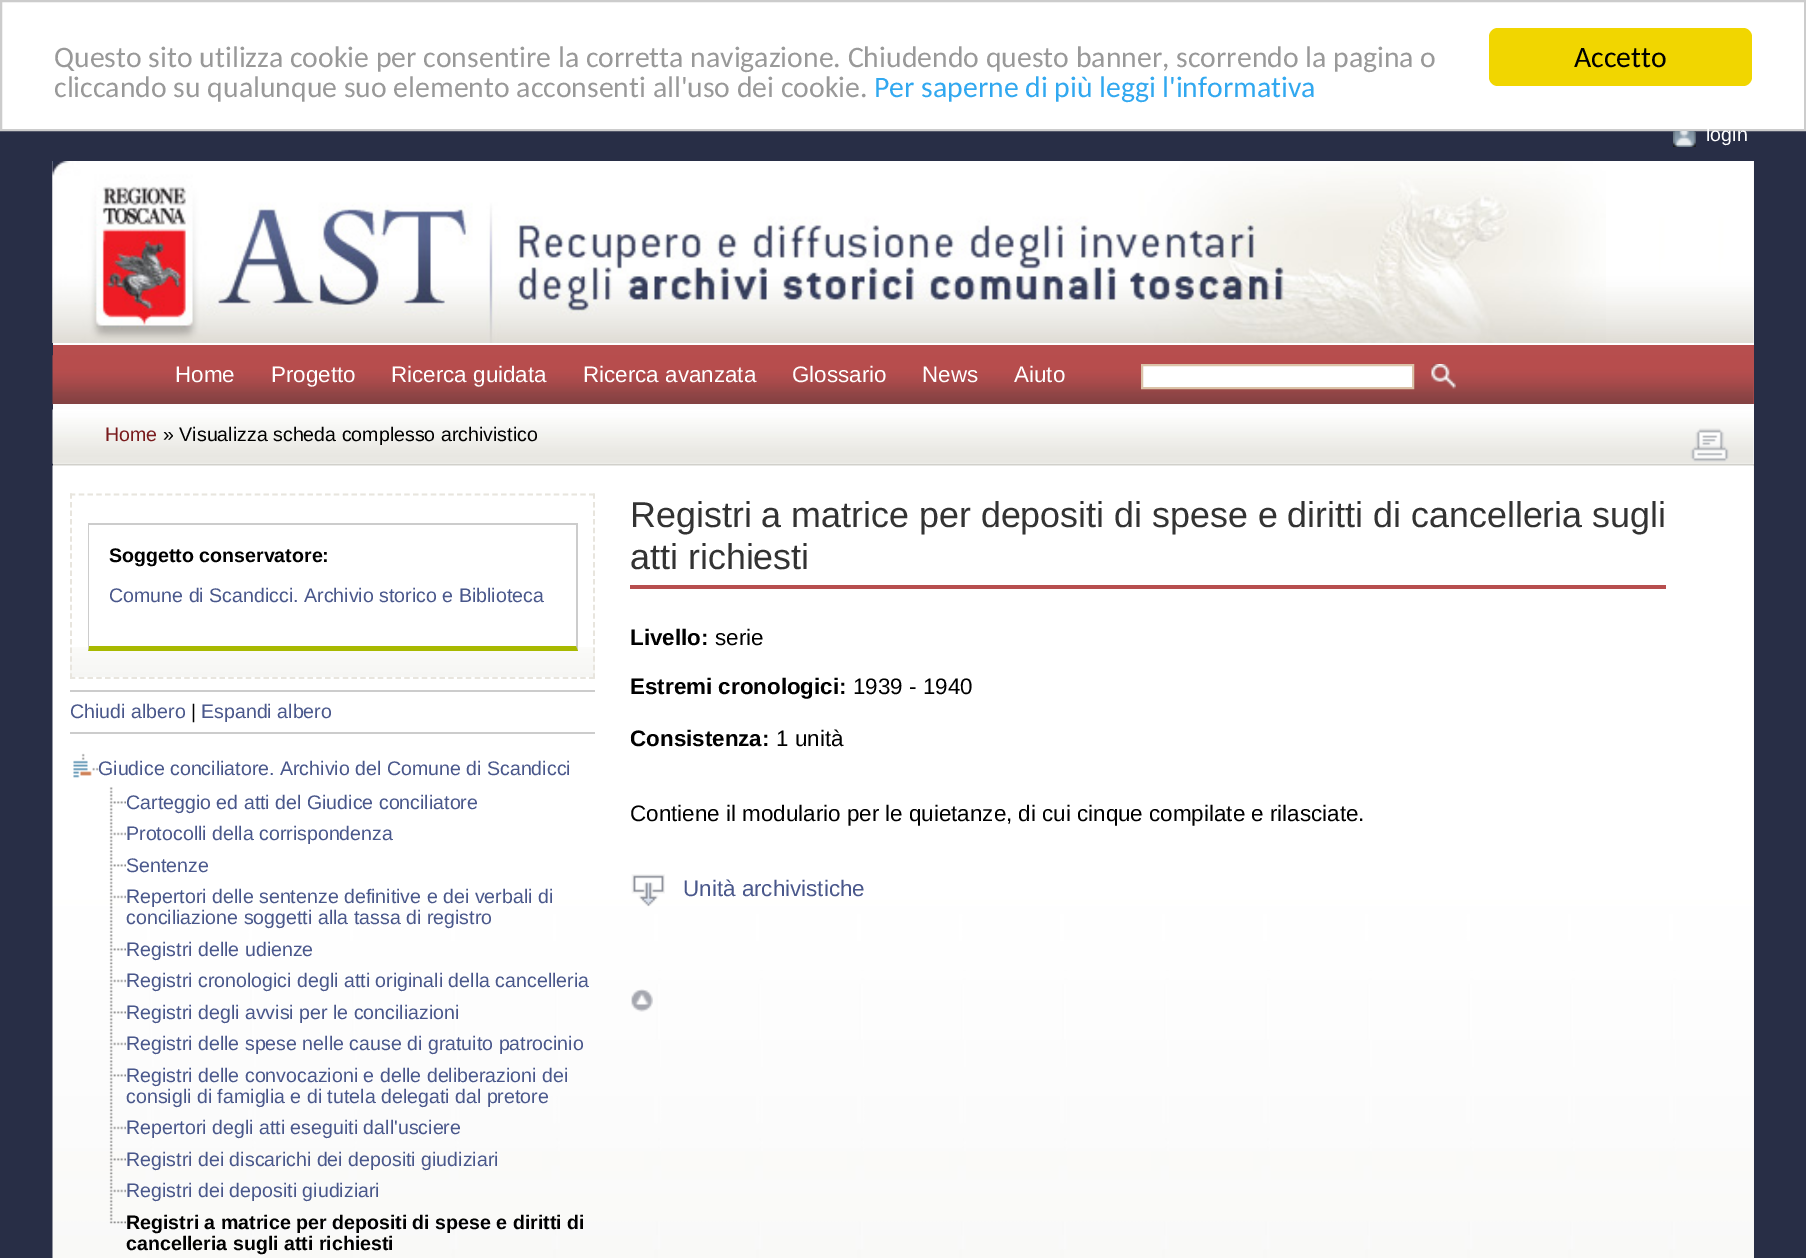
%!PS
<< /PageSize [1806 1258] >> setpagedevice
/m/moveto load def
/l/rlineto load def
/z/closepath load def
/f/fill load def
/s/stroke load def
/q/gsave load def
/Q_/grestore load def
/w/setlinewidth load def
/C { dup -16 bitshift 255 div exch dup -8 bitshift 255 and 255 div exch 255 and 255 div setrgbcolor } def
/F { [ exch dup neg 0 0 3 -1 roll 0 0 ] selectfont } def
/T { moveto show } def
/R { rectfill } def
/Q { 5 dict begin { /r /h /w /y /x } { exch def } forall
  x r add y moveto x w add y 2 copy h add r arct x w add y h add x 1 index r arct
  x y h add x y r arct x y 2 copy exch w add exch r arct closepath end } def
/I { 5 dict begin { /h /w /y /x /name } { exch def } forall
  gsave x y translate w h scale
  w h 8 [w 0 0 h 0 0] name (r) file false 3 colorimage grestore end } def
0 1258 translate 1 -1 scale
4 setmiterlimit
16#282E46 C
0 0 1806 1258 R
16#FFFFFF C
1 1 m 1804 0 l 0 129 l -1804 0 l z q f Q_
16#CCCCCC C
2 w
s
/Carlito-Regular 29.75 F
16#999999 C
(Questo sito utilizza cookie per consentire la corretta navigazione. Chiudendo questo banner, scorrendo la pagina o) 54 67 T
(cliccando su qualunque suo elemento acconsenti all'uso dei cookie.) 54 97 T
16#31A8F0 C
(Per saperne di più leggi l'informativa) 874 97 T
16#F1D600 C
1489 28 263 58 9 Q f
16#000000 C
(Accetto) 1574 67 T
(1.rgb) 1673 131 23 16 I
/LiberationSans-Regular 19.6 F
16#FFFFFF C
(login) 1706 141 T
16#F6F5F3 C
1753 161 1 1097 R
(2.rgb) 52 161 1702 182 I
(3.rgb) 52 161 1554 182 I
16#B74E4E C
53 345 1701 59 R
(4.rgb) 52 355 1702 50 I
16#FFFFFF C
53 343 1701 2 R
/LiberationSans-Regular 22.4 F
(Home) 175 382 T
(Progetto) 271 382 T
(Ricerca guidata) 391 382 T
(Ricerca avanzata) 583 382 T
(Glossario) 792 382 T
(News) 922 382 T
(Aiuto) 1014 382 T
1142 365 m 271 0 l 0 23 l -271 0 l z q f Q_
16#DBC3A8 C
s
(5.rgb) 1431 364 25 25 I
16#FDFDFD C
53 404 1701 60 R
(6.rgb) 52 409 1702 55 I
16#D1D0CB C
53 464 1701 2 R
/LiberationSans-Regular 19.6 F
16#791B1D C
(Home) 105 441 T
16#000000 C
(» Visualizza scheda complesso archivistico) 163 441 T
(7.rgb) 1690 428 39 34 I
(8.rgb) 52 465 1702 793 I
(9.rgb) 70 647 525 30 I
16#E8E5DE C
1.8 w
[5.25 3.55] 0 setdash
70 494.5 m 525 0 l s
[5.25 3.32] 0 setdash
594 493.5 m 0 185.5 l s
[5.25 3.55] 0 setdash
70 678 m 525 0 l s
[5.25 3.32] 0 setdash
71 493.5 m 0 185.5 l s
16#CCCCCC C
88 523 490 2 R
578 523 m 0 128 l -2 -5 l 0 -121 l z f
16#A8B900 C
578 651 m -490 0 l 1 -5 l 487 0 l z f
16#CCCCCC C
88 651 m 0 -128 l 1 2 l 0 121 l z f
/LiberationSans-Bold 19.6 F
16#000000 C
(Soggetto conservatore:) 109 562 T
/LiberationSans-Regular 19.6 F
16#49578B C
(Comune di Scandicci. Archivio storico e Biblioteca) 109 602 T
16#CCCCCC C
70 690 525 2 R
70 732 525 2 R
16#49578B C
(Chiudi albero) 70 718 T
16#000000 C
(|) 191 718 T
16#49578B C
(Espandi albero) 201 718 T
(10.rgb) 73 753 26 25 I
(Giudice conciliatore. Archivio del Comune di Scandicci) 98 775 T
(11.rgb) 109 787 17 31 I
(Carteggio ed atti del Giudice conciliatore) 126 809 T
(12.rgb) 109 818 17 31 I
(Protocolli della corrispondenza) 126 840 T
(11.rgb) 109 850 17 31 I
(Sentenze) 126 872 T
(13.rgb) 109 881 17 52 I
(Repertori delle sentenze definitive e dei verbali di) 126 903 T
(conciliazione soggetti alla tassa di registro) 126 924 T
(14.rgb) 109 934 17 31 I
(Registri delle udienze) 126 956 T
(15.rgb) 109 965 17 31 I
(Registri cronologici degli atti originali della cancelleria) 126 987 T
(16.rgb) 109 997 17 31 I
(Registri degli avvisi per le conciliazioni) 126 1019 T
(17.rgb) 109 1028 17 31 I
(Registri delle spese nelle cause di gratuito patrocinio) 126 1050 T
(18.rgb) 109 1060 17 52 I
(Registri delle convocazioni e delle deliberazioni dei) 126 1082 T
(consigli di famiglia e di tutela delegati dal pretore) 126 1103 T
(19.rgb) 109 1112 17 31 I
(Repertori degli atti eseguiti dall'usciere) 126 1134 T
(20.rgb) 109 1144 17 31 I
(Registri dei discarichi dei depositi giudiziari) 126 1166 T
(21.rgb) 109 1175 17 31 I
(Registri dei depositi giudiziari) 126 1197 T
(22.rgb) 109 1207 17 17 I
/LiberationSans-Bold 19.6 F
16#000000 C
(Registri a matrice per depositi di spese e diritti di) 126 1229 T
(cancelleria sugli atti richiesti) 126 1250 T
16#B74E4E C
630 585 1036 4 R
/LiberationSans-Regular 35.85 F
16#333333 C
(Registri a matrice per depositi di spese e diritti di cancelleria sugli) 630 527 T
(atti richiesti) 630 569 T
/LiberationSans-Bold 22.4 F
16#000000 C
(Livello:) 630 645 T
/LiberationSans-Regular 22.4 F
(serie) 715 645 T
/LiberationSans-Bold 22.4 F
(Estremi cronologici:) 630 694 T
/LiberationSans-Regular 22.4 F
(1939 - 1940) 853 694 T
/LiberationSans-Bold 22.4 F
(Consistenza:) 630 746 T
/LiberationSans-Regular 22.4 F
(1 unità) 776 746 T
(Contiene il modulario per le quietanze, di cui cinque compilate e rilasciate.) 630 821 T
(23.rgb) 631 874 34 33 I
16#49578B C
(Unità archivistiche) 683 896 T
(24.rgb) 631 989 22 23 I
showpage
